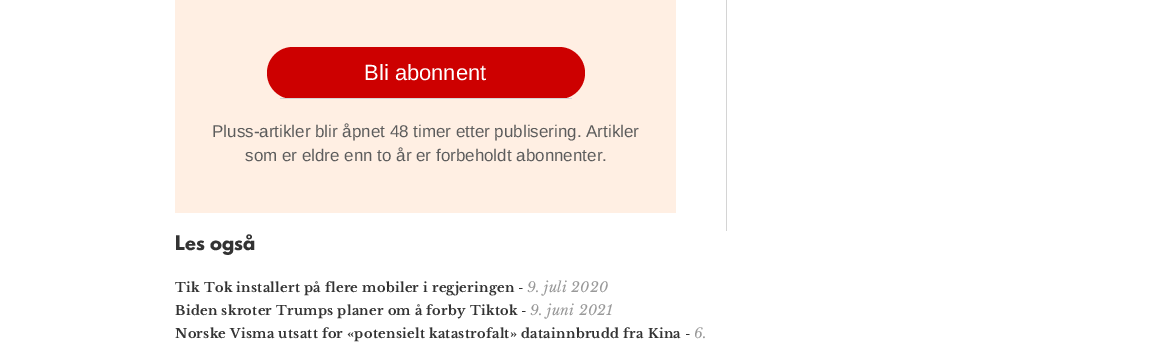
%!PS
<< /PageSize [1171 350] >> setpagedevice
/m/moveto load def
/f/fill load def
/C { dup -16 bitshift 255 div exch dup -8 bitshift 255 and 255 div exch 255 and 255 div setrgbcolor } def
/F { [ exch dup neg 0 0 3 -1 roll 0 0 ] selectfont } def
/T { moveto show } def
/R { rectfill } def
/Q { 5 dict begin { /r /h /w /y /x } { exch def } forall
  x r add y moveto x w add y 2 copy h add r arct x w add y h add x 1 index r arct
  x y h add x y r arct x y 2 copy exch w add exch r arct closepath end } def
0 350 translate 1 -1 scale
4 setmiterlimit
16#FFFFFF C
0 0 1171 350 R
16#D4D4D4 C
726 0 1 231 R
16#FFEFE3 C
175 0 501 213 R
16#CD0000 C
267 47 318 52 26 Q f
16#D4D4D4 C
280 98 292 1 R
/LiberationSans-Regular 22 F
16#FFFFFF C
(Bli abonnent) 364 80 T
/LiberationSans-Regular 17 F
16#5C5C5C C
(Pluss-artikler blir åpnet 48 timer etter publisering. Artikler) 212 137 T
(som er eldre enn to år er forbeholdt abonnenter.) 245 161 T
/LeagueSpartan-Bold 18 F
16#333333 C
(Les også) 175 250 T
/LibreBaskerville-Bold 13 F
175 292 m .3 0 (Tik Tok installert på flere mobiler i regjeringen) ashow
/LibreBaskerville-Regular 12 F
(-) 518 292 T
/LibreBaskerville-Italic 14 F
16#999999 C
527 292 m .3 0 (9. juli 2020) ashow
/LibreBaskerville-Bold 13 F
16#333333 C
175 315 m .3 0 (Biden skroter Trumps planer om å forby Tiktok) ashow
/LibreBaskerville-Regular 12 F
(-) 521 315 T
/LibreBaskerville-Italic 14 F
16#999999 C
530 315 m .3 0 (9. juni 2021) ashow
/LibreBaskerville-Bold 13 F
16#333333 C
175 338 m .3 0 (Norske Visma utsatt for «potensielt katastrofalt» datainnbrudd fra Kina) ashow
/LibreBaskerville-Regular 12 F
(-) 685 338 T
/LibreBaskerville-Italic 14 F
16#999999 C
694 338 m .3 0 (6.) ashow
showpage
